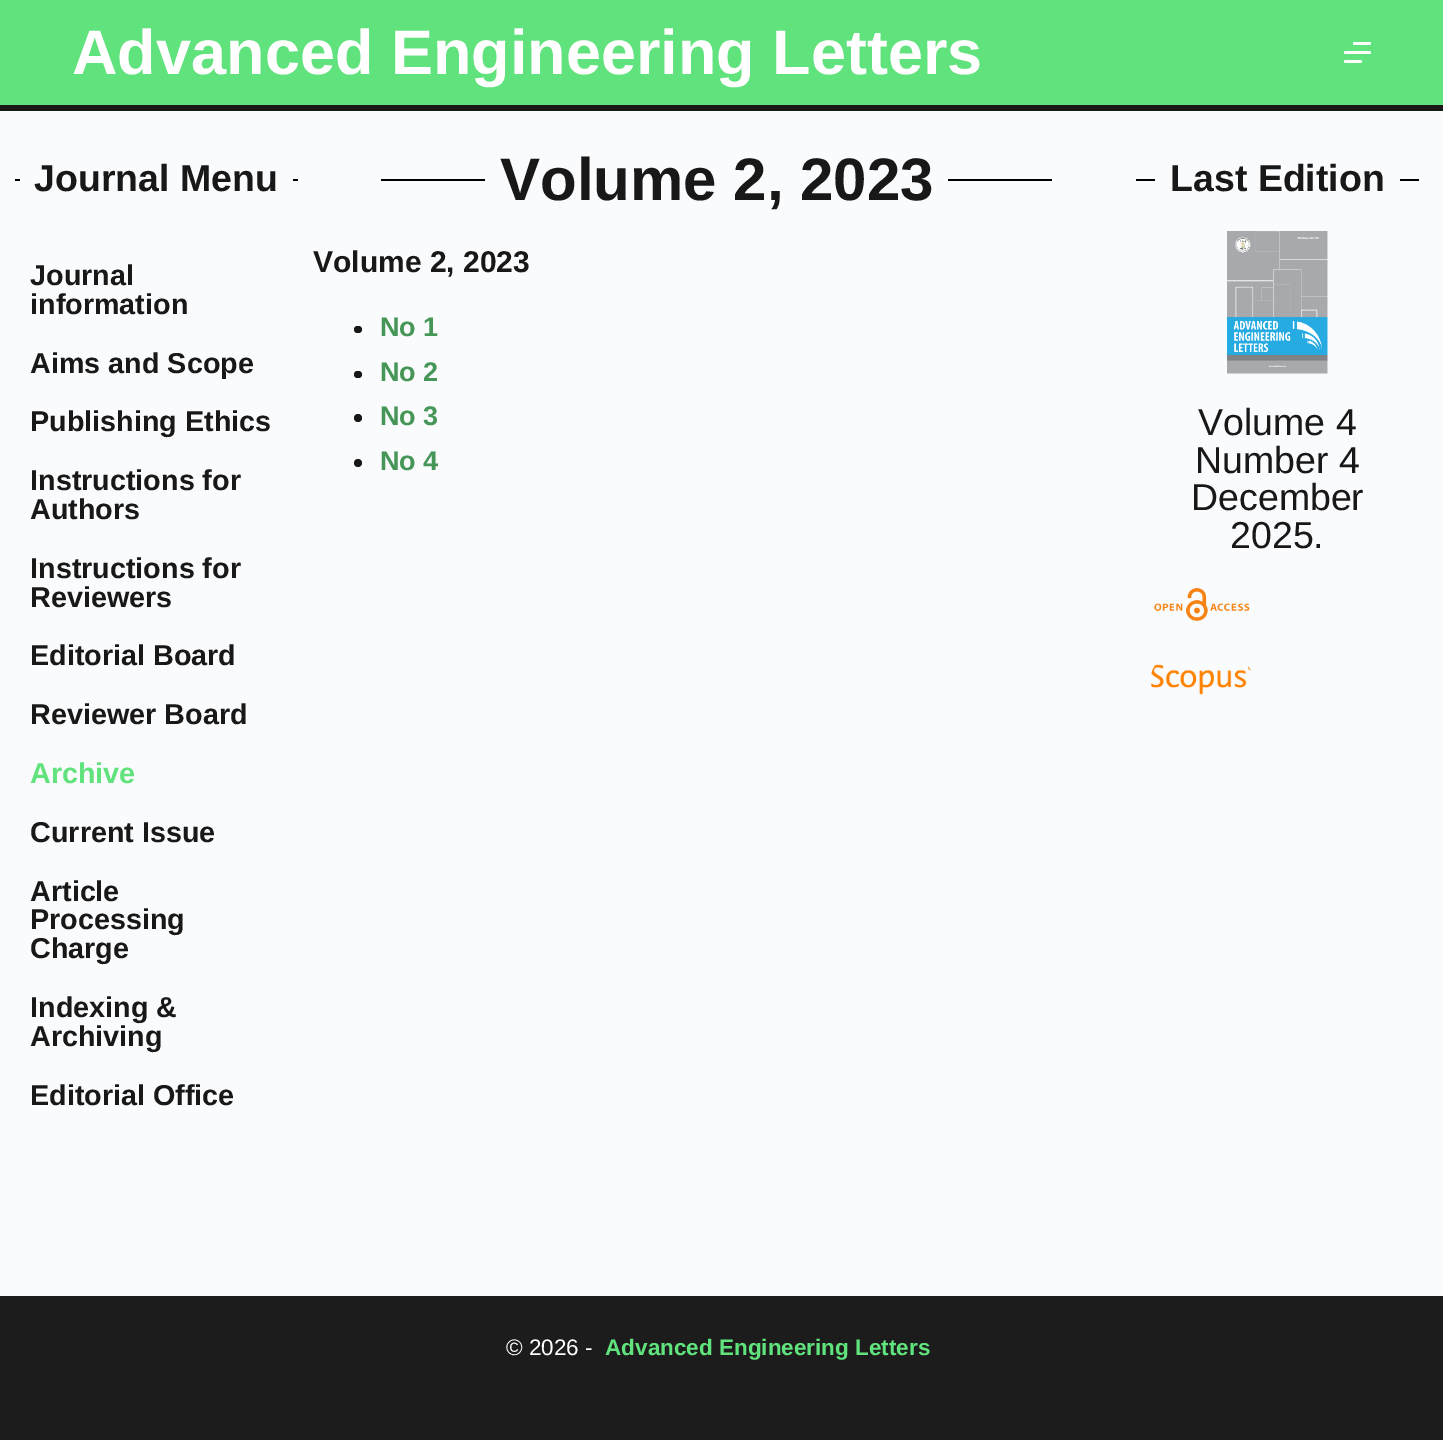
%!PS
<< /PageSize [1443 1440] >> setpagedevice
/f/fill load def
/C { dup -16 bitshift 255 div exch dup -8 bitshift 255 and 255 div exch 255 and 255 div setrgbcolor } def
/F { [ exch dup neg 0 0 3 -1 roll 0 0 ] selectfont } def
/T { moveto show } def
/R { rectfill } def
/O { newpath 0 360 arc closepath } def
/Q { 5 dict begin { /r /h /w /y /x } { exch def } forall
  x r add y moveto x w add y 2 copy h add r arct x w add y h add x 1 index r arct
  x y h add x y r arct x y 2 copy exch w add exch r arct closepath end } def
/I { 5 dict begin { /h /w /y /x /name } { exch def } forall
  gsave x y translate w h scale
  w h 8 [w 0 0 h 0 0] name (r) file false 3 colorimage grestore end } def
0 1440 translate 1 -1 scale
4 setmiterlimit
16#FAFBFC C
0 0 1443 1440 R
16#60E27C C
0 0 1443 105 R
16#181818 C
0 105 1443 6 R
/LiberationSans-Bold 63 F
16#FFFFFF C
(Advanced Engineering Letters) 72 74 T
16#FCFCFC C
1353 42 18 3 1.5 Q f
1344 51 27 3 1.5 Q f
1344 60 18 3 1.5 Q f
16#000000 C
15 179 5 2 R
/LiberationSans-Bold 37.5 F
16#181818 C
(Journal Menu) 34 191 T
16#000000 C
293 179 5 2 R
381 179 104 2 R
/LiberationSans-Bold 60 F
16#181818 C
(Volume 2, 2023) 500 200 T
16#000000 C
948 179 104 2 R
1136 179 19 2 R
/LiberationSans-Bold 37.5 F
16#181818 C
(Last Edition) 1170 191 T
16#000000 C
1400 179 19 2 R
/LiberationSans-Bold 28.75 F
16#181818 C
(Journal) 30 285 T
(information) 30 314 T
(Aims and Scope) 30 373 T
(Publishing Ethics) 30 431 T
(Instructions for) 30 490 T
(Authors) 30 519 T
(Instructions for) 30 578 T
(Reviewers) 30 607 T
(Editorial Board) 30 665 T
(Reviewer Board) 30 724 T
16#60E27C C
(Archive) 30 783 T
16#181818 C
(Current Issue) 30 842 T
(Article) 30 901 T
(Processing) 30 929 T
(Charge) 30 958 T
(Indexing &) 30 1017 T
(Archiving) 30 1046 T
(Editorial Office) 30 1105 T
/LiberationSans-Bold 30 F
(Volume 2, 2023) 313 272 T
354 326 8 7 3.5 Q f
/LiberationSans-Bold 27 F
16#459657 C
(No 1) 380 336 T
16#181818 C
354 371 8 7 3.5 Q f
16#459657 C
(No 2) 380 381 T
16#181818 C
358 418 4 O f
16#459657 C
(No 3) 380 425 T
16#181818 C
358 463 4 O f
16#459657 C
(No 4) 380 470 T
(1.rgb) 1227 231 101 143 I
/LiberationSans-Regular 37.5 F
16#181818 C
(Volume 4) 1198 435 T
(Number 4) 1195 473 T
(December) 1191 510 T
(2025.) 1230 548 T
(2.rgb) 1154 588 96 33 I
(3.rgb) 1151 664 100 31 I
16#1C1C1C C
0 1296 1443 144 R
/LiberationSans-Regular 22.5 F
16#FFFFFF C
(© 2026 -) 506 1355 T
/LiberationSans-Bold 22.5 F
16#60E27C C
(Advanced Engineering Letters) 605 1355 T
showpage
